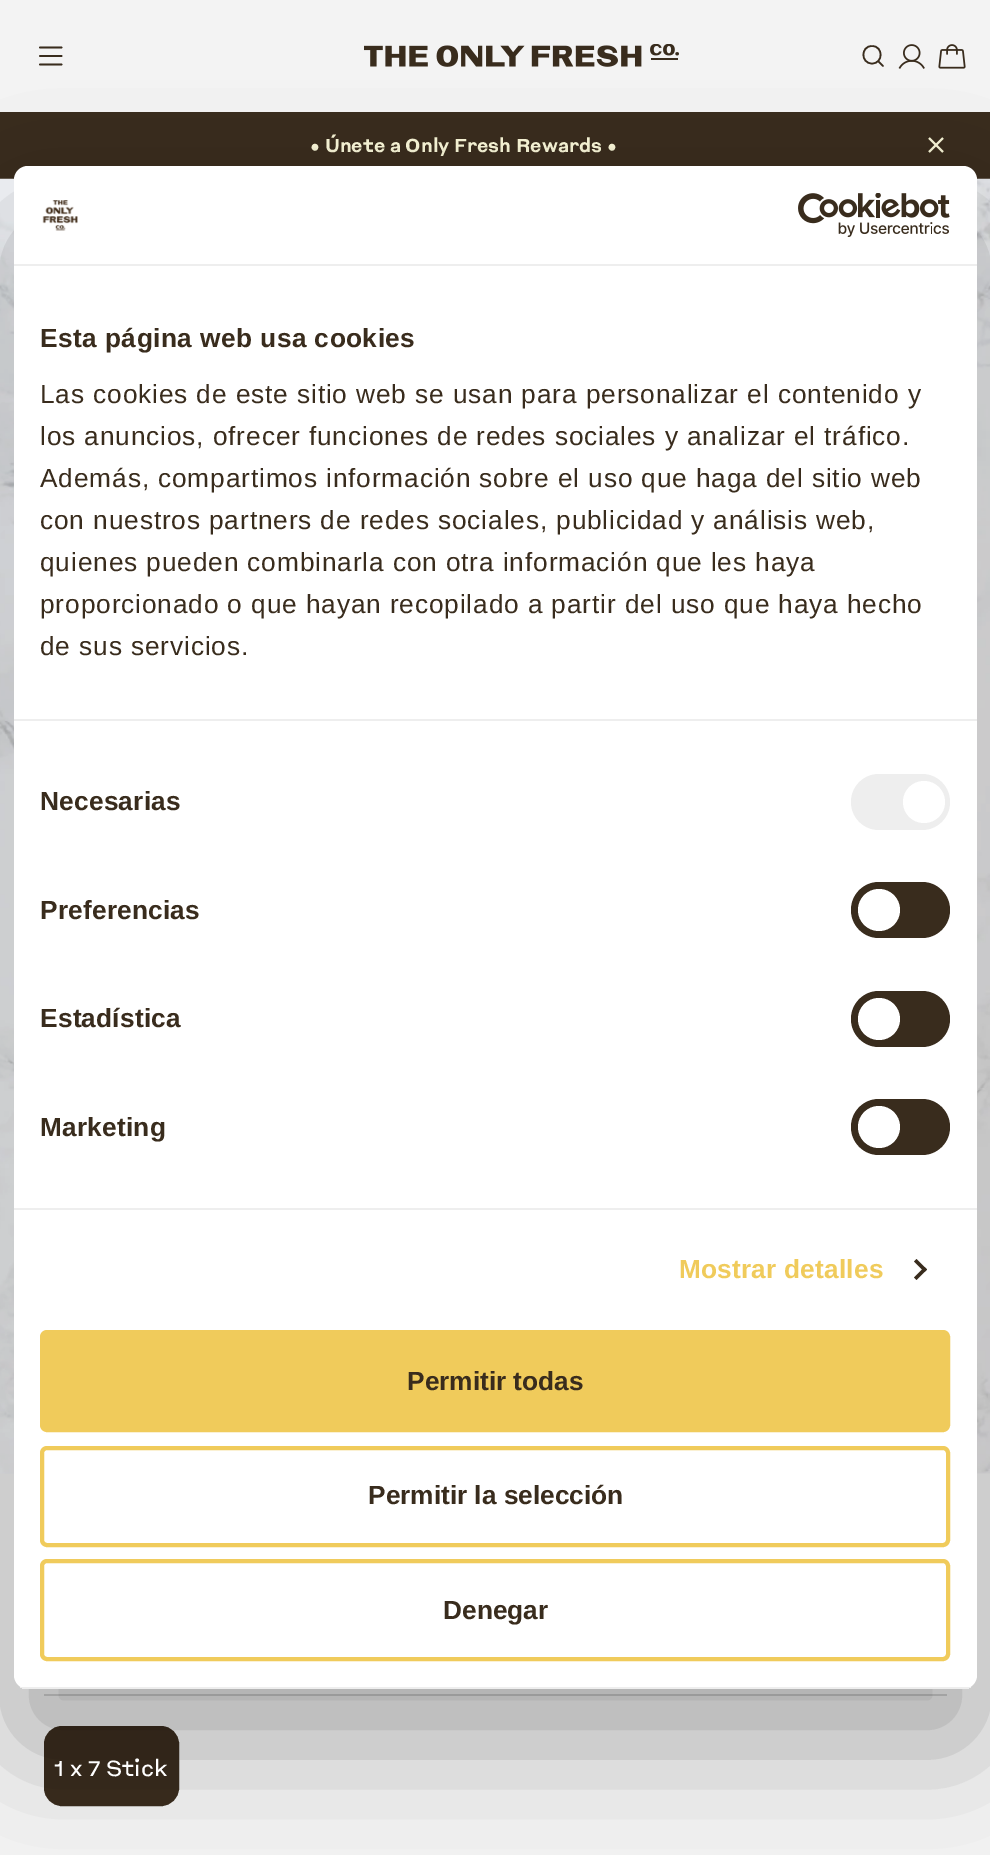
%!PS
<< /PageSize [990 1855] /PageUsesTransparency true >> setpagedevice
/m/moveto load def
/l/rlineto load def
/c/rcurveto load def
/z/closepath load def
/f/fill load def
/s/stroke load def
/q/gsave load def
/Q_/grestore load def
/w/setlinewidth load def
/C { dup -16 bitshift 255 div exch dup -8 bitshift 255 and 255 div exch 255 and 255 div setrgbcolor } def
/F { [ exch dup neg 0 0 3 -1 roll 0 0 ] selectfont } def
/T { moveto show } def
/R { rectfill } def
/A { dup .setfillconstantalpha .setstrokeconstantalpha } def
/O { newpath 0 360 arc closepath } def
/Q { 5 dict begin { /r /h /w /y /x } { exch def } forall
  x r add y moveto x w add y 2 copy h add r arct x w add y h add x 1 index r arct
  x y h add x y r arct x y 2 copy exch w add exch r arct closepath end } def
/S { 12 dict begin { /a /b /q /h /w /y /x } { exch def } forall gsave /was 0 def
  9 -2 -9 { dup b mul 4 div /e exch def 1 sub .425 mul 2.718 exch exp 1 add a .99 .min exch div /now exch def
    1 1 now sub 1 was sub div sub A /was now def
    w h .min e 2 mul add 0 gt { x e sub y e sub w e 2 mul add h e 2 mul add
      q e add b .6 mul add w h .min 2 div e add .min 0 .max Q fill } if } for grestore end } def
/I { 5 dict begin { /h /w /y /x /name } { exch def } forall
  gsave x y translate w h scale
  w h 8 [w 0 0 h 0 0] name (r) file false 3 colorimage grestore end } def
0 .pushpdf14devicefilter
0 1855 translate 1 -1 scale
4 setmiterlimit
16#F3F3F3 C
0 0 990 1855 R
16#392C1D C
1.7 w
1 setlinecap
1 setlinejoin
40 47.5 m 21.5 0 l 40 56 m 21.5 0 l 40 64.5 m 21.5 0 l s
(1.rgb) 364 44 315 23 I
1.6 w
872 63.5 m 11.5 0 11.5 -17.5 0 -17.5 c -11.5 0 -11.5 17.5 0 17.5 c z 878 61 m 5 5 l s
(2.rgb) 898 44 27 25 I
(3.rgb) 938 44 28 25 I
0 112 990 67 R
/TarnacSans-Bold 21 F
16#F7F4D5 C
(• Únete a Only Fresh Rewards •) 310 152 T
1.8 w
0 setlinecap
0 setlinejoin
943 152 m -14 -14 l 929 152 m 14 -14 l s
(6.rgb) 0 178 990 1296 I
16#CDCDCD C
44 1694 903 2 R
16#392C1D C
45 1727 133 78 17 Q q f Q_
2 w
s
16#000000 C
14 222 963 1523 14 59.5 .3 S
16#FFFFFF C
14 166 963 1523 14 Q f
16#EEEEEE C
14 264 963 2 R
(4.rgb) 42 200 36 31 I
(5.rgb) 798 193 152 44 I
14 719 963 2 R
/LiberationSans-Bold 26.25 F
16#392C1D C
40 347 m .45 0 (Esta página web usa cookies) ashow
/LiberationSans-Regular 26.25 F
40 403 m .88 0 (Las cookies de este sitio web se usan para personalizar el contenido y) ashow
40 445 m .88 0 (los anuncios, ofrecer funciones de redes sociales y analizar el tráfico.) ashow
40 487 m .88 0 (Además, compartimos información sobre el uso que haga del sitio web) ashow
40 529 m .88 0 (con nuestros partners de redes sociales, publicidad y análisis web,) ashow
40 571 m .88 0 (quienes pueden combinarla con otra información que les haya) ashow
40 613 m .88 0 (proporcionado o que hayan recopilado a partir del uso que haya hecho) ashow
40 655 m .88 0 (de sus servicios.) ashow
16#EEEEEE C
14 1208 963 2 R
/LiberationSans-Bold 26.25 F
16#392C1D C
40 810 m .2 0 (Necesarias) ashow
16#EEEEEE C
851 774 99 56 28 Q f
16#FFFFFF C
924 802 21 O f
16#392C1D C
40 919 m .2 0 (Preferencias) ashow
851 882 99 56 28 Q f
16#FFFFFF C
879 910 21 O f
16#392C1D C
40 1027 m .2 0 (Estadística) ashow
851 991 99 56 28 Q f
16#FFFFFF C
879 1019 21 O f
16#392C1D C
40 1136 m .2 0 (Marketing) ashow
851 1099 99 56 28 Q f
16#FFFFFF C
879 1127 21 O f
16#F0CB5B C
679 1278 m .2 0 (Mostrar detalles) ashow
16#392C1D C
916.5 1259 m 10.5 10.5 l -2.5 2.5 l -10.5 -10.5 l z f
924.5 1267 m 2.5 2.5 l -10.5 10.5 l -2.5 -2.5 l z f
q
14 166 963 1523 14 Q clip newpath
16#EEEEEE C
14 1687 963 2 R
Q_
16#F0CB5B C
42 1332 906 98 5 Q q f Q_
4 w
s
16#392C1D C
(Permitir todas) 407 1390 T
16#F0CB5B C
42 1448 906 97 5 Q s
16#392C1D C
(Permitir la selección) 368 1504 T
16#F0CB5B C
42 1561 906 98 5 Q s
16#392C1D C
(Denegar) 443 1619 T
/TarnacSans-Regular 24.5 F
16#FFFFFF C
(1 x 7 Stick) 54 1776 T
.poppdf14devicefilter showpage
